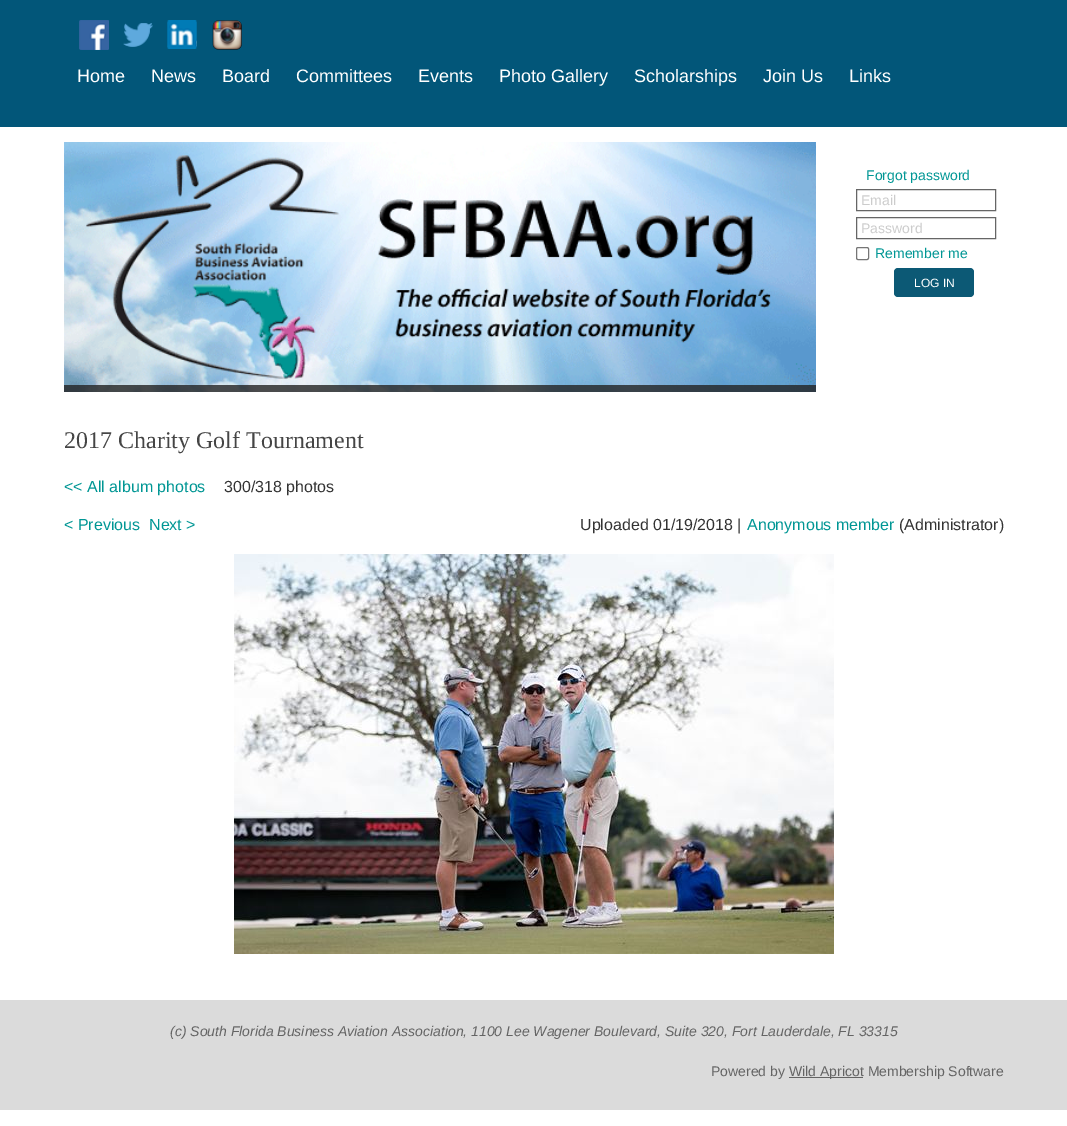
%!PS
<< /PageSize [1067 1126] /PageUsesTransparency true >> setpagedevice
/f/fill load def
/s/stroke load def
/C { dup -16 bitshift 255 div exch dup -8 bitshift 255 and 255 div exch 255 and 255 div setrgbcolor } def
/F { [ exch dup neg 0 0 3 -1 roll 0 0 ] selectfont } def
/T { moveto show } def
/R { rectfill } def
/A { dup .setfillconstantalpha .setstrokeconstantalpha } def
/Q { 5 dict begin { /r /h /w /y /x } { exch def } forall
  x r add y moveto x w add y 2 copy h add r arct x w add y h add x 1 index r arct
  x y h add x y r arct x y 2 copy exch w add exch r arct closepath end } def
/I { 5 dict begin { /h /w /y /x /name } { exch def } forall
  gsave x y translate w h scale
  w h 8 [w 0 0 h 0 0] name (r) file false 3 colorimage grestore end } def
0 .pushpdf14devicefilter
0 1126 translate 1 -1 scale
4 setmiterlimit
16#FFFFFF C
0 0 1067 1126 R
16#025679 C
0 0 1067 127 R
(1.rgb) 79 20 30 30 I
(2.rgb) 123 23 30 24 I
(3.rgb) 167 20 30 29 I
(4.rgb) 212 20 30 30 I
/LiberationSans-Regular 18 F
16#FFFFFF C
(Home) 77 82 T
(News) 151 82 T
(Board) 222 82 T
(Committees) 296 82 T
(Events) 418 82 T
(Photo Gallery) 499 82 T
(Scholarships) 634 82 T
(Join Us) 763 82 T
(Links) 849 82 T
(5.rgb) 64 142 752 250 I
0.8 A
16#222222 C
64 385 752 7 R
/LiberationSans-Regular 14 F
1 A
16#009694 C
(Forgot password) 866 180 T
16#666666 C
856.5 189.5 139 21 rectstroke
16#CCCCCC C
(Email) 861 205 T
16#666666 C
856.5 217.5 139 21 rectstroke
16#CCCCCC C
(Password) 861 233 T
16#767676 C
856.5 247.5 12 12 1.5 Q s
16#009694 C
(Remember me) 875 258 T
16#0C5975 C
894 268 80 29 4 Q f
/LiberationSans-Regular 12 F
16#FFFFFF C
(LOG IN) 914 287 T
/LiberationSerif-Regular 24 F
16#454545 C
(2017 Charity Golf Tournament) 64 448 T
/LiberationSans-Regular 16 F
16#009694 C
(<< All album photos) 64 492 T
16#333333 C
(300/318 photos) 224 492 T
16#009694 C
(< Previous) 64 530 T
(Next >) 149 530 T
16#333333 C
(Uploaded 01/19/2018 |) 580 530 T
16#009694 C
(Anonymous member) 747 530 T
16#333333 C
(\(Administrator\)) 899 530 T
(6.rgb) 234 554 600 400 I
16#DBDBDB C
0 1000 1067 110 R
/LiberationSans-Italic 14 F
16#646464 C
(\(c\) South Florida Business Aviation Association, 1100 Lee Wagener Boulevard, Suite 320, Fort Lauderdale, FL 33315) 170 1036 T
/LiberationSans-Regular 14 F
(Powered by) 711 1076 T
789 1077 74 1 R
(Wild Apricot Membership Software) 789 1076 T
.poppdf14devicefilter showpage
